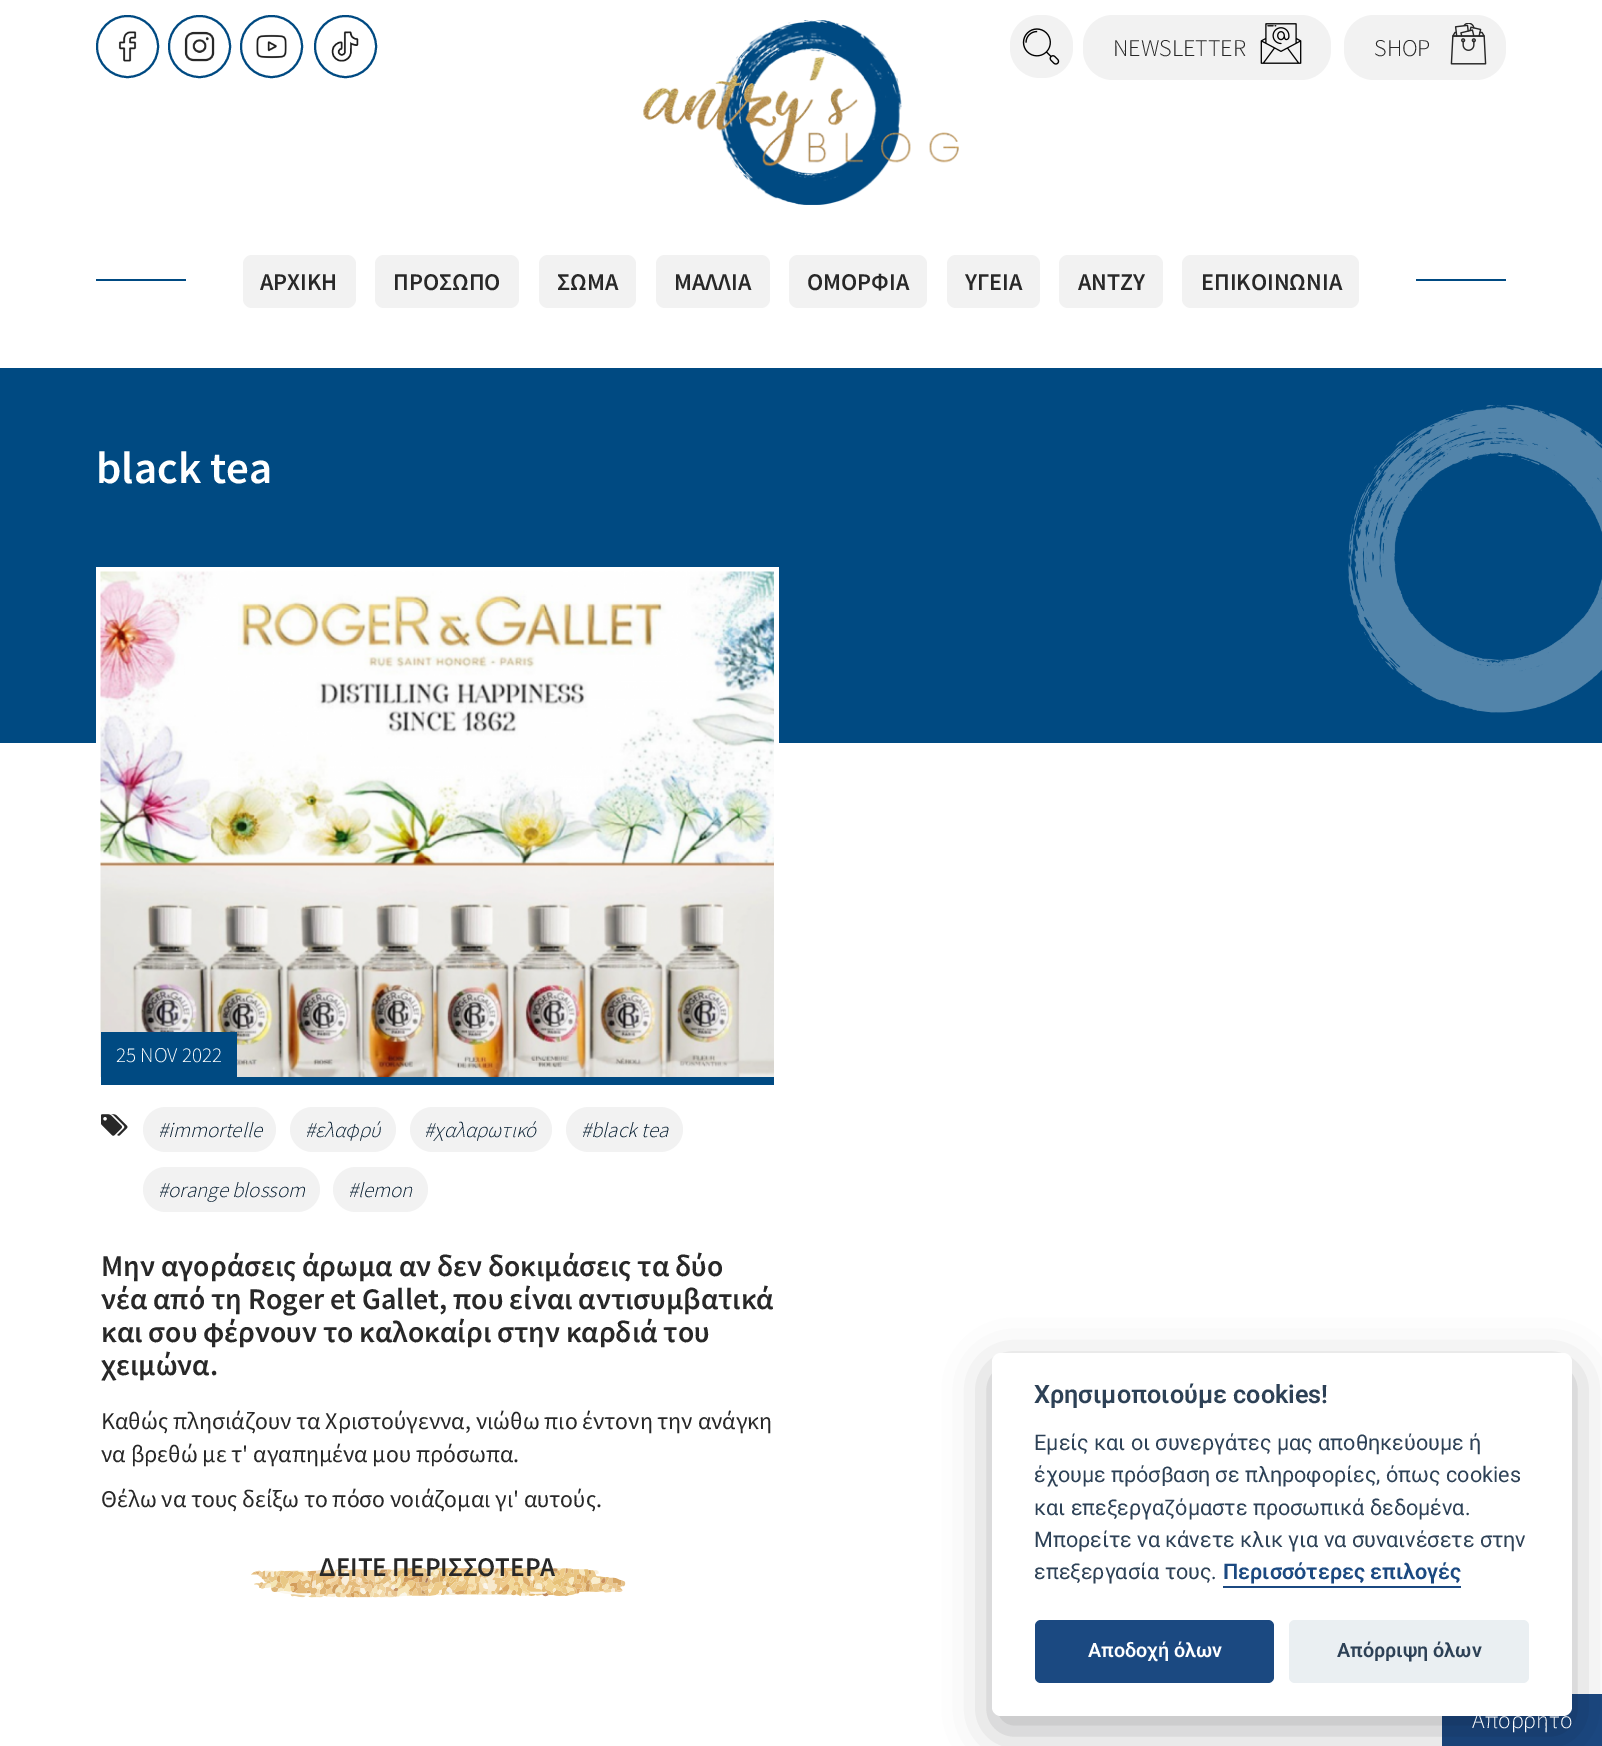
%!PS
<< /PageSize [1602 1746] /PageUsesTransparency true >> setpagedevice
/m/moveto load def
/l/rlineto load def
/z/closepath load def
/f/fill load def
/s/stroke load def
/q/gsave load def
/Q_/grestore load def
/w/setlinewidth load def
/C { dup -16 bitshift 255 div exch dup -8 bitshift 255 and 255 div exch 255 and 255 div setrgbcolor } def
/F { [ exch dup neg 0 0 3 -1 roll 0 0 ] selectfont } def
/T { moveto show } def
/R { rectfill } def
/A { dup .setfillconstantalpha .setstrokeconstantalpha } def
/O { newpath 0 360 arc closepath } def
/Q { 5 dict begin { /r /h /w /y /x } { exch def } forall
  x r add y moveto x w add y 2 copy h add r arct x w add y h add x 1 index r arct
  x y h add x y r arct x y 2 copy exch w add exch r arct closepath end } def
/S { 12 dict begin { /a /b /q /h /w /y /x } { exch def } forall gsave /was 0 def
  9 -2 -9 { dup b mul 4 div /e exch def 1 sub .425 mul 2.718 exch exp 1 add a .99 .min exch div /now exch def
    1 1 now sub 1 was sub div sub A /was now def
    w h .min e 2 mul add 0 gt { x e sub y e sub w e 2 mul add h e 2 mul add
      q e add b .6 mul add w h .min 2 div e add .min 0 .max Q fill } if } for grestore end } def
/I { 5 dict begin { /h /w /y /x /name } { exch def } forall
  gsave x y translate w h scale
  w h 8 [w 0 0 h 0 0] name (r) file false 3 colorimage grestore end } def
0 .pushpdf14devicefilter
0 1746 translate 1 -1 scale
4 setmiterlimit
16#FFFFFF C
0 0 1602 1746 R
16#004A82 C
2 w
127.5 46.5 30.5 O s
(1.rgb) 118 31 19 31 I
199.5 46.5 30.5 O s
(2.rgb) 184 31 31 31 I
271.5 46.5 30.5 O s
(3.rgb) 256 34 31 25 I
345.5 46.5 30.5 O s
(4.rgb) 331 31 28 31 I
(5.rgb) 643 20 316 185 I
16#F2F2F2 C
1010 15 63 63 30 Q f
(6.rgb) 1022 28 38 37 I
1083 15 248 65 30 Q f
(7.rgb) 1260 23 42 41 I
/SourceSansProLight-Light 24 F
16#282828 C
(NEWSLETTER) 1113 56 T
16#F2F2F2 C
1344 15 162 65 30 Q f
(8.rgb) 1450 23 37 42 I
16#282828 C
(SHOP) 1374 56 T
16#004A82 C
96 279 90 2 R
16#F2F2F2 C
243 255 113 53 9 Q f
/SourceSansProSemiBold-SemiBold 24 F
16#282828 C
(ΑΡΧΙΚΗ) 260 290 T
16#F2F2F2 C
375 255 144 53 9 Q f
16#282828 C
(ΠΡΟΣΩΠΟ) 393 290 T
16#F2F2F2 C
539 255 97 53 9 Q f
16#282828 C
(ΣΩΜΑ) 557 290 T
16#F2F2F2 C
656 255 114 53 9 Q f
16#282828 C
(ΜΑΛΛΙΑ) 674 290 T
16#F2F2F2 C
789 255 138 53 9 Q f
16#282828 C
(ΟΜΟΡΦΙΑ) 807 290 T
16#F2F2F2 C
947 255 93 53 9 Q f
16#282828 C
(ΥΓΕΙΑ) 965 290 T
16#F2F2F2 C
1059 255 104 53 9 Q f
16#282828 C
(ΑΝΤΖΥ) 1078 290 T
16#F2F2F2 C
1182 255 177 53 9 Q f
16#282828 C
(ΕΠΙΚΟΙΝΩΝΙΑ) 1201 290 T
16#004A82 C
1416 279 90 2 R
0 368 1602 375 R
/SourceSansProSemiBold-SemiBold 45 F
16#FFFFFF C
(black tea) 96 483 T
(9.rgb) 1348 405 254 308 I
96 567 683 176 R
16#004A82 C
101 1077 673 8 R
(10.rgb) 100 571 674 506 I
101 1032 136 45 R
/SourceSansProLight-Light 21 F
16#FFFFFF C
(25 NOV 2022) 116 1062 T
(11.rgb) 101 1114 27 22 I
16#F2F2F2 C
143 1107 133 45 22.5 Q f
/SourceSansProLight-LightItalic 21 F
16#071E31 C
(#immortelle) 158 1137 T
16#F2F2F2 C
290 1107 106 45 22.5 Q f
16#071E31 C
(#ελαφρύ) 305 1137 T
16#F2F2F2 C
410 1107 142 45 22.5 Q f
16#071E31 C
(#χαλαρωτικό) 424 1137 T
16#F2F2F2 C
566 1107 117 45 22.5 Q f
16#071E31 C
(#black tea) 581 1137 T
16#F2F2F2 C
143 1167 177 45 22.5 Q f
16#071E31 C
(#orange blossom) 158 1197 T
16#F2F2F2 C
333 1167 95 45 22.5 Q f
16#071E31 C
(#lemon) 348 1197 T
/SourceSansProSemiBold-SemiBold 30 F
16#282828 C
(Μην αγοράσεις άρωμα αν δεν δοκιμάσεις τα δύο) 101 1276 T
(νέα από τη Roger et Gallet, που είναι αντισυμβατικά) 101 1309 T
(και σου φέρνουν το καλοκαίρι στην καρδιά του) 101 1342 T
(χειμώνα.) 101 1375 T
/SourceSansPro-Regular 24 F
(Καθώς πλησιάζουν τα Χριστούγεννα, νιώθω πιο έντονη την ανάγκη) 101 1429 T
(να βρεθώ με τ' αγαπημένα μου πρόσωπα.) 101 1462 T
(Θέλω να τους δείξω το πόσο νοιάζομαι γι' αυτούς.) 101 1507 T
(12.rgb) 251 1568 375 30 I
/SourceSansProSemiBold-SemiBold 27 F
(ΔΕΙΤΕ ΠΕΡΙΣΣΟΤΕΡΑ) 319 1576 T
16#1B4981 C
1443 1695 m 158 0 l 0 50 l -158 0 l z q f Q_
s
16#020203 C
992 1368 580 363 9 22.5 .28 S
16#FFFFFF C
992 1353 580 363 9 Q f
/Roboto-SemiBold 25.25 F
16#2D4156 C
(Χρησιμοποιούμε cookies!) 1034 1403 T
/Roboto-Regular 21.6 F
(Εμείς και οι συνεργάτες μας αποθηκεύουμε ή) 1034 1450 T
(έχουμε πρόσβαση σε πληροφορίες, όπως cookies) 1034 1482 T
(και επεξεργαζόμαστε προσωπικά δεδομένα.) 1034 1515 T
(Μπορείτε να κάνετε κλικ για να συναινέσετε στην) 1034 1547 T
(επεξεργασία τους.) 1034 1579 T
/Roboto-SemiBold 21.6 F
16#1B4981 C
(Περισσότερες επιλογές) 1223 1579 T
1223 1586 238 2 R
1035 1620 239 63 6 Q f
/Roboto-SemiBold 19.75 F
16#FFFFFF C
(Αποδοχή όλων) 1088 1657 T
16#EAEFF2 C
1289 1620 240 63 6 Q f
16#2D4156 C
(Απόρριψη όλων) 1337 1657 T
/SourceSansProLight-Light 24 F
16#FFFFFF C
(Απόρρητο) 1472 1728 T
.poppdf14devicefilter showpage
